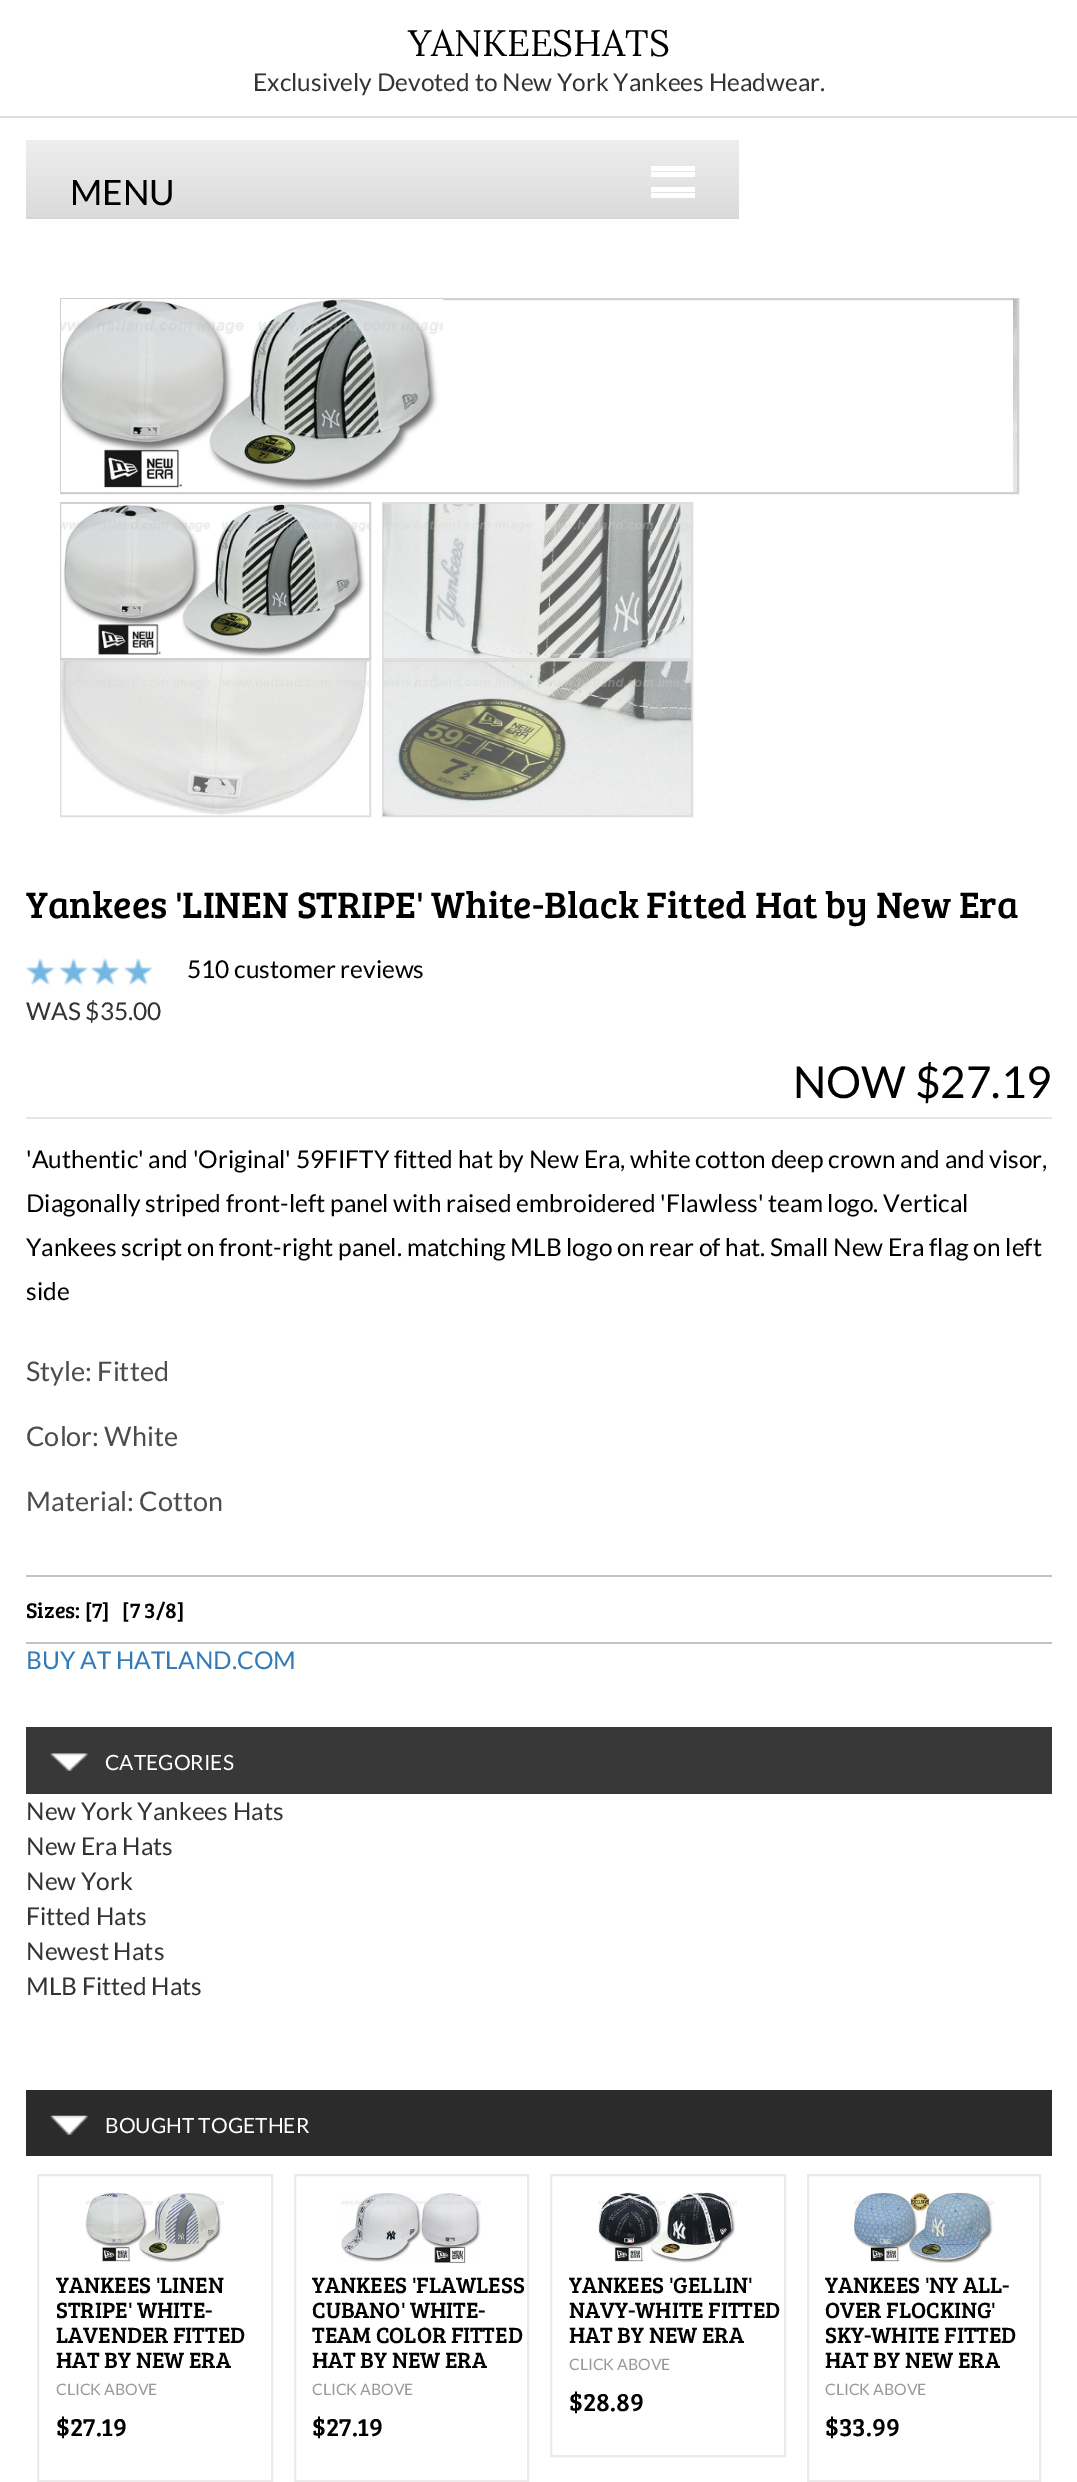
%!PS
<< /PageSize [1077 2482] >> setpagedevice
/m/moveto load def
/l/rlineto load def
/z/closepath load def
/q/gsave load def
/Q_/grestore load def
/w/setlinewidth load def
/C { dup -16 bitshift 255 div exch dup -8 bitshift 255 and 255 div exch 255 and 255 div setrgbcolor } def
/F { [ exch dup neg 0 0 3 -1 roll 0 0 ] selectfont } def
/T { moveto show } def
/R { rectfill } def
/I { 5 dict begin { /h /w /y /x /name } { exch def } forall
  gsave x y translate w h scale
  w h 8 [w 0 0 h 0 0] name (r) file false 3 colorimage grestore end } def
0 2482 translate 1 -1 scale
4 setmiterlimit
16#FFFFFF C
0 0 1077 2482 R
16#DEDEDE C
0 116 1077 2 R
/Lora-Regular 36.75 F
16#000000 C
(YANKEESHATS) 408 56 T
/Lato-Regular 24.5 F
16#333333 C
(Exclusively Devoted to New York Yankees Headwear.) 253 91 T
q 26 140 m 713 0 l 0 77 l -713 0 l z clip newpath
<< /ShadingType 2 /ColorSpace /DeviceRGB /Coords [382 140 382 217] /Extend [true true] /Function << /FunctionType 2 /Domain [0 1] /C0 [.933 .933 .933] /C1 [.859 .859 .859] /N 1 >> >> shfill Q_
16#D6D6D6 C
26 217 713 2 R
16#FFFFFF C
651 166 44 5 R
651 172 44 5 R
/Lato-Regular 35 F
16#000000 C
(MENU) 70 205 T
16#FFFFFF C
651 187 44 5 R
651 193 44 5 R
16#D1CFCF C
2 w
61 299 957 194 rectstroke
(1.rgb) 61 299 382 193 I
(2.rgb) 1013 299 4 193 I
61 503 309 156 rectstroke
(3.rgb) 61 504 309 154 I
16#DFDDDD C
383 503 309 156 rectstroke
(4.rgb) 383 504 308 154 I
61 661 309 155 rectstroke
(5.rgb) 61 661 309 155 I
383 661 309 155 rectstroke
(6.rgb) 383 661 309 155 I
/BreeSerif-Regular 38 F
16#000000 C
(Yankees 'LINEN STRIPE' White-Black Fitted Hat by New Era) 26 918 T
(7.rgb) 26 958 29 28 I
(8.rgb) 59 958 29 28 I
(9.rgb) 91 958 28 28 I
(7.rgb) 124 958 29 28 I
/Lato-Regular 24.5 F
(510 customer reviews) 187 978 T
16#333333 C
(WAS $35.00) 26 1020 T
16#E6E6E6 C
26 1117 1026 2 R
/Lato-Regular 44 F
16#000000 C
(NOW $27.19) 793 1098 T
/Lato-Regular 24.5 F
('Authentic' and 'Original' 59FIFTY fitted hat by New Era, white cotton deep crown and and visor,) 26 1168 T
(Diagonally striped front-left panel with raised embroidered 'Flawless' team logo. Vertical) 26 1212 T
(Yankees script on front-right panel. matching MLB logo on rear of hat. Small New Era flag on left) 26 1256 T
(side) 26 1300 T
/Lato-Regular 27 F
16#4C4C4C C
(Style: Fitted) 26 1381 T
(Color: White) 26 1446 T
(Material: Cotton) 26 1511 T
16#C4C3C3 C
26 1575 1026 2 R
26 1642 1026 2 R
/BreeSerif-Regular 22 F
16#000000 C
(Sizes: [7]   [7 3/8]) 26 1618 T
/Lato-Regular 24.5 F
16#337AB7 C
(BUY AT HATLAND.COM) 26 1669 T
16#383838 C
26 1727 1026 67 R
(10.rgb) 50 1753 38 18 I
/Lato-Regular 21 F
16#FFFFFF C
(CATEGORIES) 105 1770 T
/Lato-Regular 24.5 F
16#333333 C
(New York Yankees Hats) 26 1820 T
(New Era Hats) 26 1855 T
(New York) 26 1890 T
(Fitted Hats) 26 1925 T
(Newest Hats) 26 1960 T
(MLB Fitted Hats) 26 1995 T
16#2B2B2B C
26 2090 1026 66 R
(11.rgb) 50 2115 38 20 I
/Lato-Regular 21 F
16#FFFFFF C
(BOUGHT TOGETHER) 105 2133 T
16#ECEAEA C
38 2175 234 306 rectstroke
(12.rgb) 85 2192 139 71 I
/BreeSerif-Regular 22.75 F
16#000000 C
(YANKEES 'LINEN) 56 2293 T
(STRIPE' WHITE-) 56 2318 T
(LAVENDER FITTED) 56 2343 T
(HAT BY NEW ERA) 56 2368 T
/Lato-Regular 15.75 F
16#999999 C
(CLICK ABOVE) 56 2395 T
/BreeSerif-Regular 26 F
16#000000 C
($27.19) 56 2436 T
16#ECEAEA C
295 2175 233 306 rectstroke
(13.rgb) 341 2193 141 70 I
/BreeSerif-Regular 22.75 F
16#000000 C
(YANKEES 'FLAWLESS) 312 2293 T
(CUBANO' WHITE-) 312 2318 T
(TEAM COLOR FITTED) 312 2343 T
(HAT BY NEW ERA) 312 2368 T
/Lato-Regular 15.75 F
16#999999 C
(CLICK ABOVE) 312 2395 T
/BreeSerif-Regular 26 F
16#000000 C
($27.19) 312 2436 T
16#ECEAEA C
551 2175 234 281 rectstroke
(14.rgb) 598 2192 139 71 I
/BreeSerif-Regular 22.75 F
16#000000 C
(YANKEES 'GELLIN') 569 2293 T
(NAVY-WHITE FITTED) 569 2318 T
(HAT BY NEW ERA) 569 2343 T
/Lato-Regular 15.75 F
16#999999 C
(CLICK ABOVE) 569 2370 T
/BreeSerif-Regular 26 F
16#000000 C
($28.89) 569 2411 T
16#ECEAEA C
808 2175 232 306 rectstroke
(15.rgb) 854 2192 140 71 I
/BreeSerif-Regular 22.75 F
16#000000 C
(YANKEES 'NY ALL-) 825 2293 T
(OVER FLOCKING') 825 2318 T
(SKY-WHITE FITTED) 825 2343 T
(HAT BY NEW ERA) 825 2368 T
/Lato-Regular 15.75 F
16#999999 C
(CLICK ABOVE) 825 2395 T
/BreeSerif-Regular 26 F
16#000000 C
($33.99) 825 2436 T
showpage
